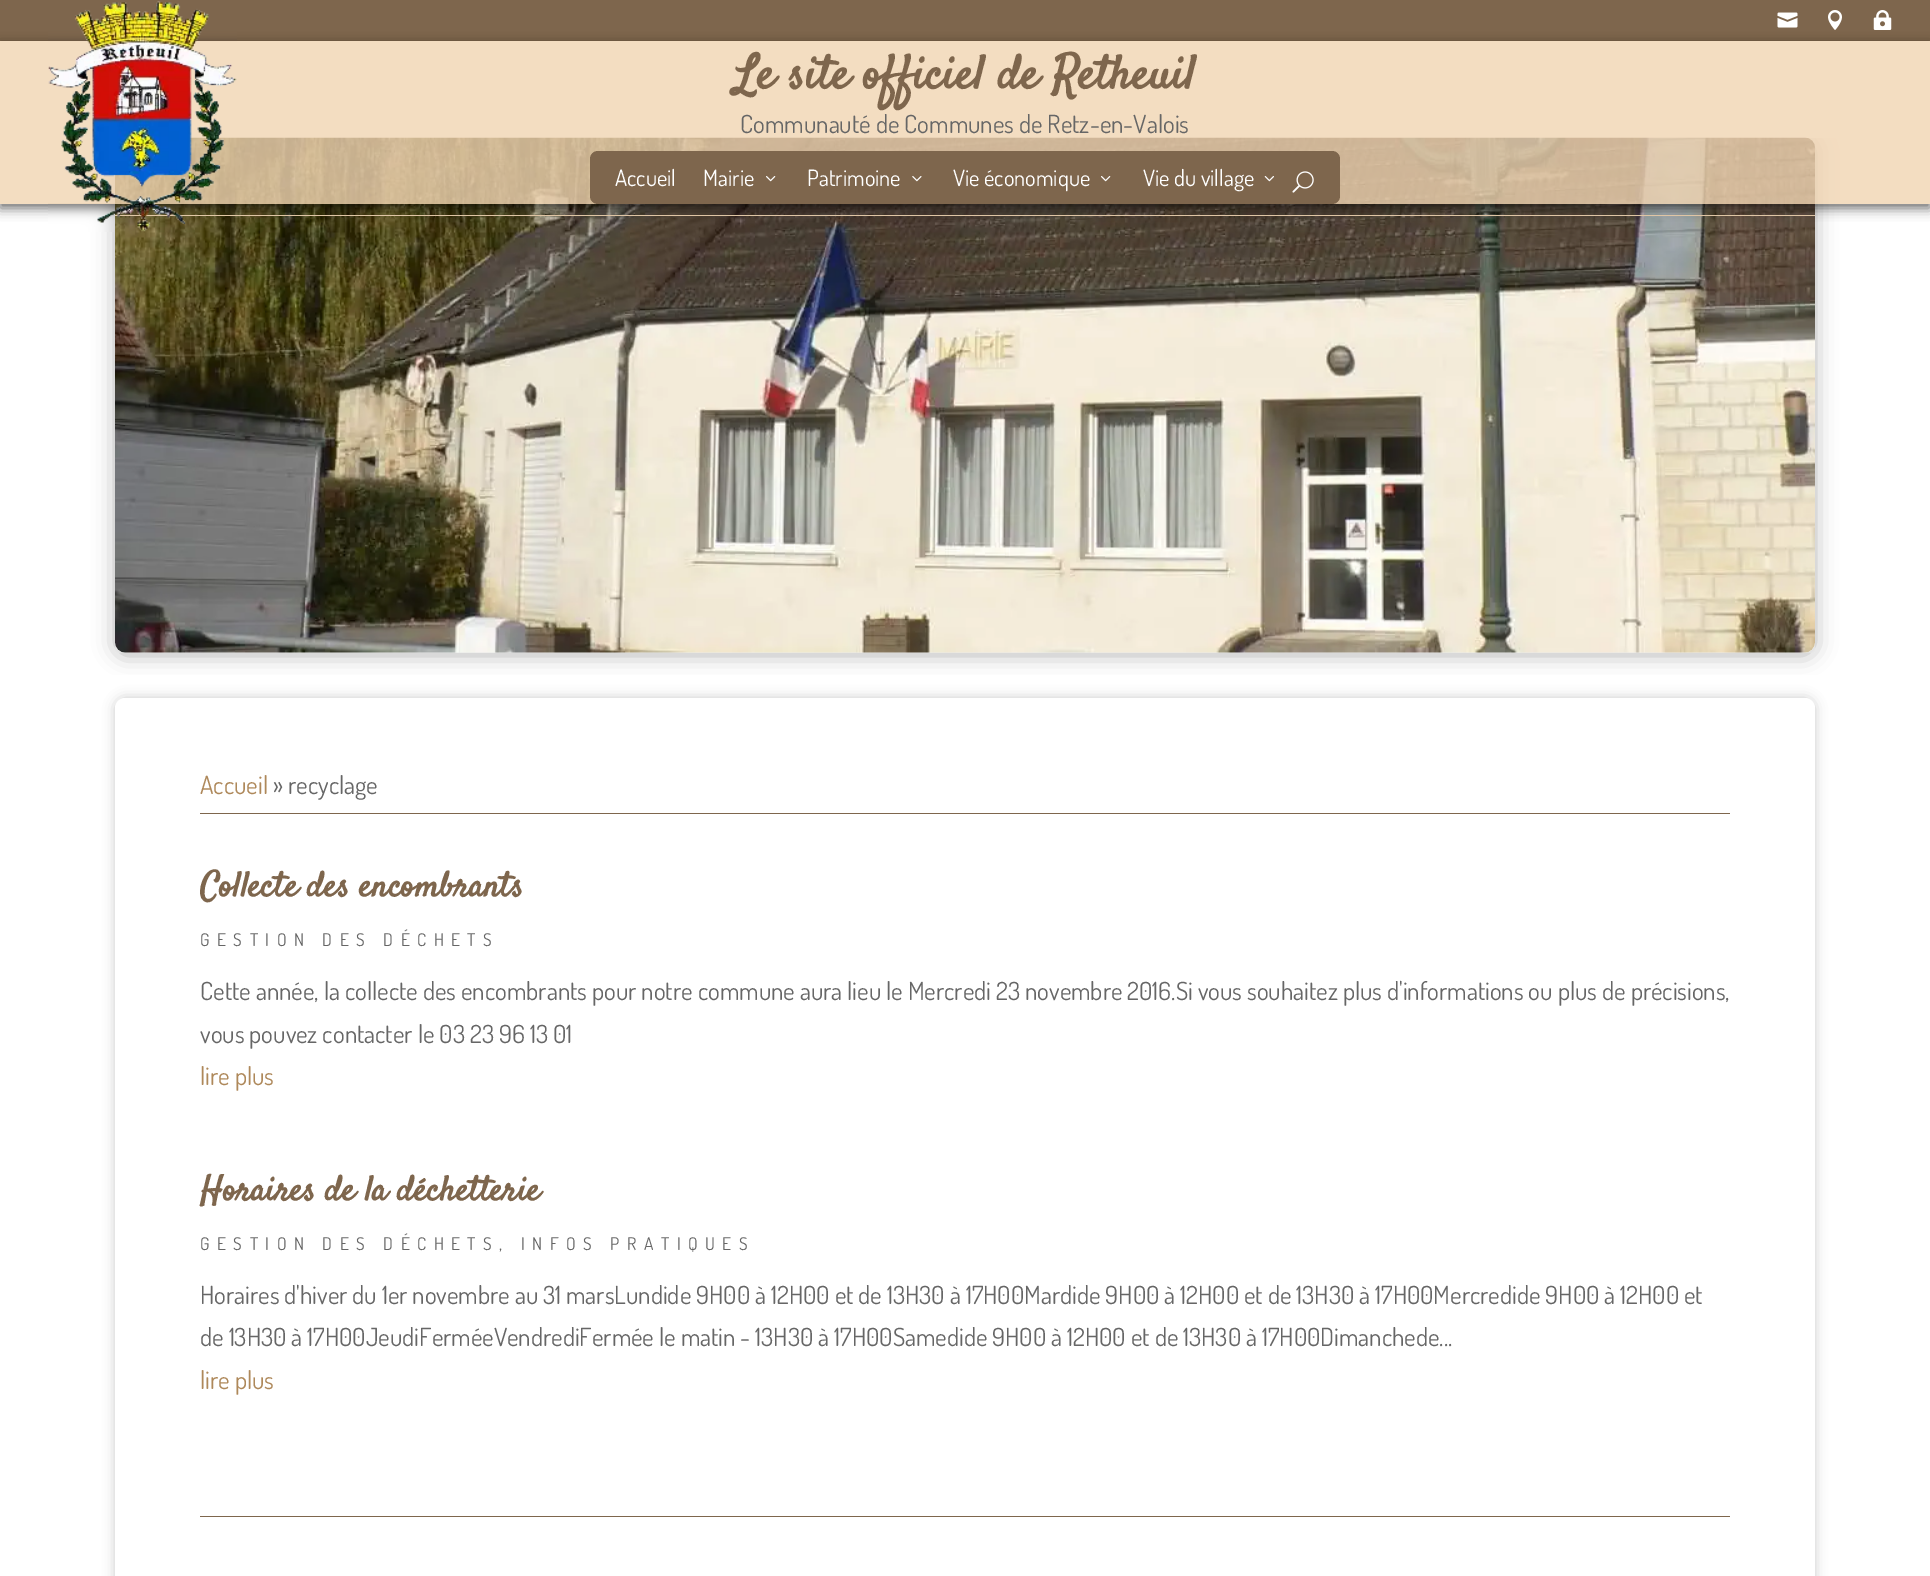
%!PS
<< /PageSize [1930 1576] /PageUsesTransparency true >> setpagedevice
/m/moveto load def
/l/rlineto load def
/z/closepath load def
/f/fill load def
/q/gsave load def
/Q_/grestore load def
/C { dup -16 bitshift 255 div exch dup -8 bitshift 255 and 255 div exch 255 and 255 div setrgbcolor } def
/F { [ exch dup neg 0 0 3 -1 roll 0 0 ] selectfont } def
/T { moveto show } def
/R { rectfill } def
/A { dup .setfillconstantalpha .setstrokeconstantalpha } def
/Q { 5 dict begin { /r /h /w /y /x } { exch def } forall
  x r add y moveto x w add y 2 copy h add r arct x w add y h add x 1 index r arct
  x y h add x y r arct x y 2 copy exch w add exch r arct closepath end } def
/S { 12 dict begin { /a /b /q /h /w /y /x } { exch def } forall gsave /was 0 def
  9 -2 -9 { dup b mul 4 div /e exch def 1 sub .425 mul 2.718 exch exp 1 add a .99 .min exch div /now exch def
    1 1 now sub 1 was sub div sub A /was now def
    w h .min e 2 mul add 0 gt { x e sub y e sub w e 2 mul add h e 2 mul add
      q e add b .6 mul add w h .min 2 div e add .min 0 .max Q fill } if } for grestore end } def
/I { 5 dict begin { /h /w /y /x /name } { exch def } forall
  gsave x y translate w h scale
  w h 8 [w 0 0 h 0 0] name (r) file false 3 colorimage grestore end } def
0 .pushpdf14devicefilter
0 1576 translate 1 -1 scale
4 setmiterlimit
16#FFFFFF C
0 0 1930 1576 R
16#7E664D C
0 0 1930 41 R
(1.rgb) 1777 12 21 16 I
(2.rgb) 1828 10 14 20 I
(3.rgb) 1873 10 19 20 I
q
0 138 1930 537 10 Q clip newpath
16#000000 C
115 140 1700 515 10 11 .3 S
Q_
(9.rgb) 115 137 1700 516 I
16#F0D4B1 C
115 215 1700 1 R
q
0 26 m 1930 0 l 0 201 l -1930 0 l z 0 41 m 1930 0 l 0 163 l -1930 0 l z eoclip newpath
16#000000 C
0 45 1930 163 0 6 .6 S
Q_
0.8 A
0 41 1930 163 R
1 A
(4.rgb) 48 1 189 231 I
/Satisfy-Bold 47.5 F
16#7E664D C
(Le site officiel de Retheuil) 734 88 T
/Dosis-Regular 25 F
16#666666 C
(Communauté de Communes de Retz-en-Valois) 740 133 T
16#7E664D C
590 151 750 53 8 Q f
/Dosis-Regular 22.5 F
16#FFFFFF C
(Accueil) 615 186 T
(Mairie) 703 186 T
(5.rgb) 766 176 10 6 I
(Patrimoine) 807 186 T
(6.rgb) 912 176 10 6 I
(Vie économique) 953 186 T
(5.rgb) 1101 176 10 6 I
(Vie du village) 1143 186 T
(7.rgb) 1264 176 10 6 I
(8.rgb) 1292 171 22 22 I
16#000000 C
115 698 1700 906 10 6 .2 S
16#FFFFFF C
115 698 1700 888 10 Q f
/Dosis-Regular 25 F
16#AE885A C
(Accueil) 200 794 T
16#666666 C
(» recyclage) 273 794 T
16#7E664D C
200 813 1530 1 R
/Satisfy-Bold 35 F
(Collecte des encombrants) 200 896 T
/Dosis-Regular 17.5 F
16#666666 C
200 946 m 7.5 0 (GESTION DES DÉCHETS) ashow
/Dosis-Regular 25 F
(Cette année, la collecte des encombrants pour notre commune aura lieu le Mercredi 23 novembre 2016.Si vous souhaitez plus d'informations ou plus de précisions,) 200 1000 T
(vous pouvez contacter le 03 23 96 13 01) 200 1043 T
16#AE885A C
(lire plus) 200 1085 T
/Satisfy-Bold 35 F
16#7E664D C
(Horaires de la déchetterie) 200 1200 T
/Dosis-Regular 17.5 F
16#666666 C
200 1250 m 7.5 0 (GESTION DES DÉCHETS, INFOS PRATIQUES) ashow
/Dosis-Regular 25 F
(Horaires d'hiver du 1er novembre au 31 marsLundide 9H00 à 12H00 et de 13H30 à 17H00Mardide 9H00 à 12H00 et de 13H30 à 17H00Mercredide 9H00 à 12H00 et) 200 1304 T
(de 13H30 à 17H00JeudiFerméeVendrediFermée le matin - 13H30 à 17H00Samedide 9H00 à 12H00 et de 13H30 à 17H00Dimanchede...) 200 1346 T
16#AE885A C
(lire plus) 200 1389 T
16#7E664D C
200 1516 1530 1 R
.poppdf14devicefilter showpage
